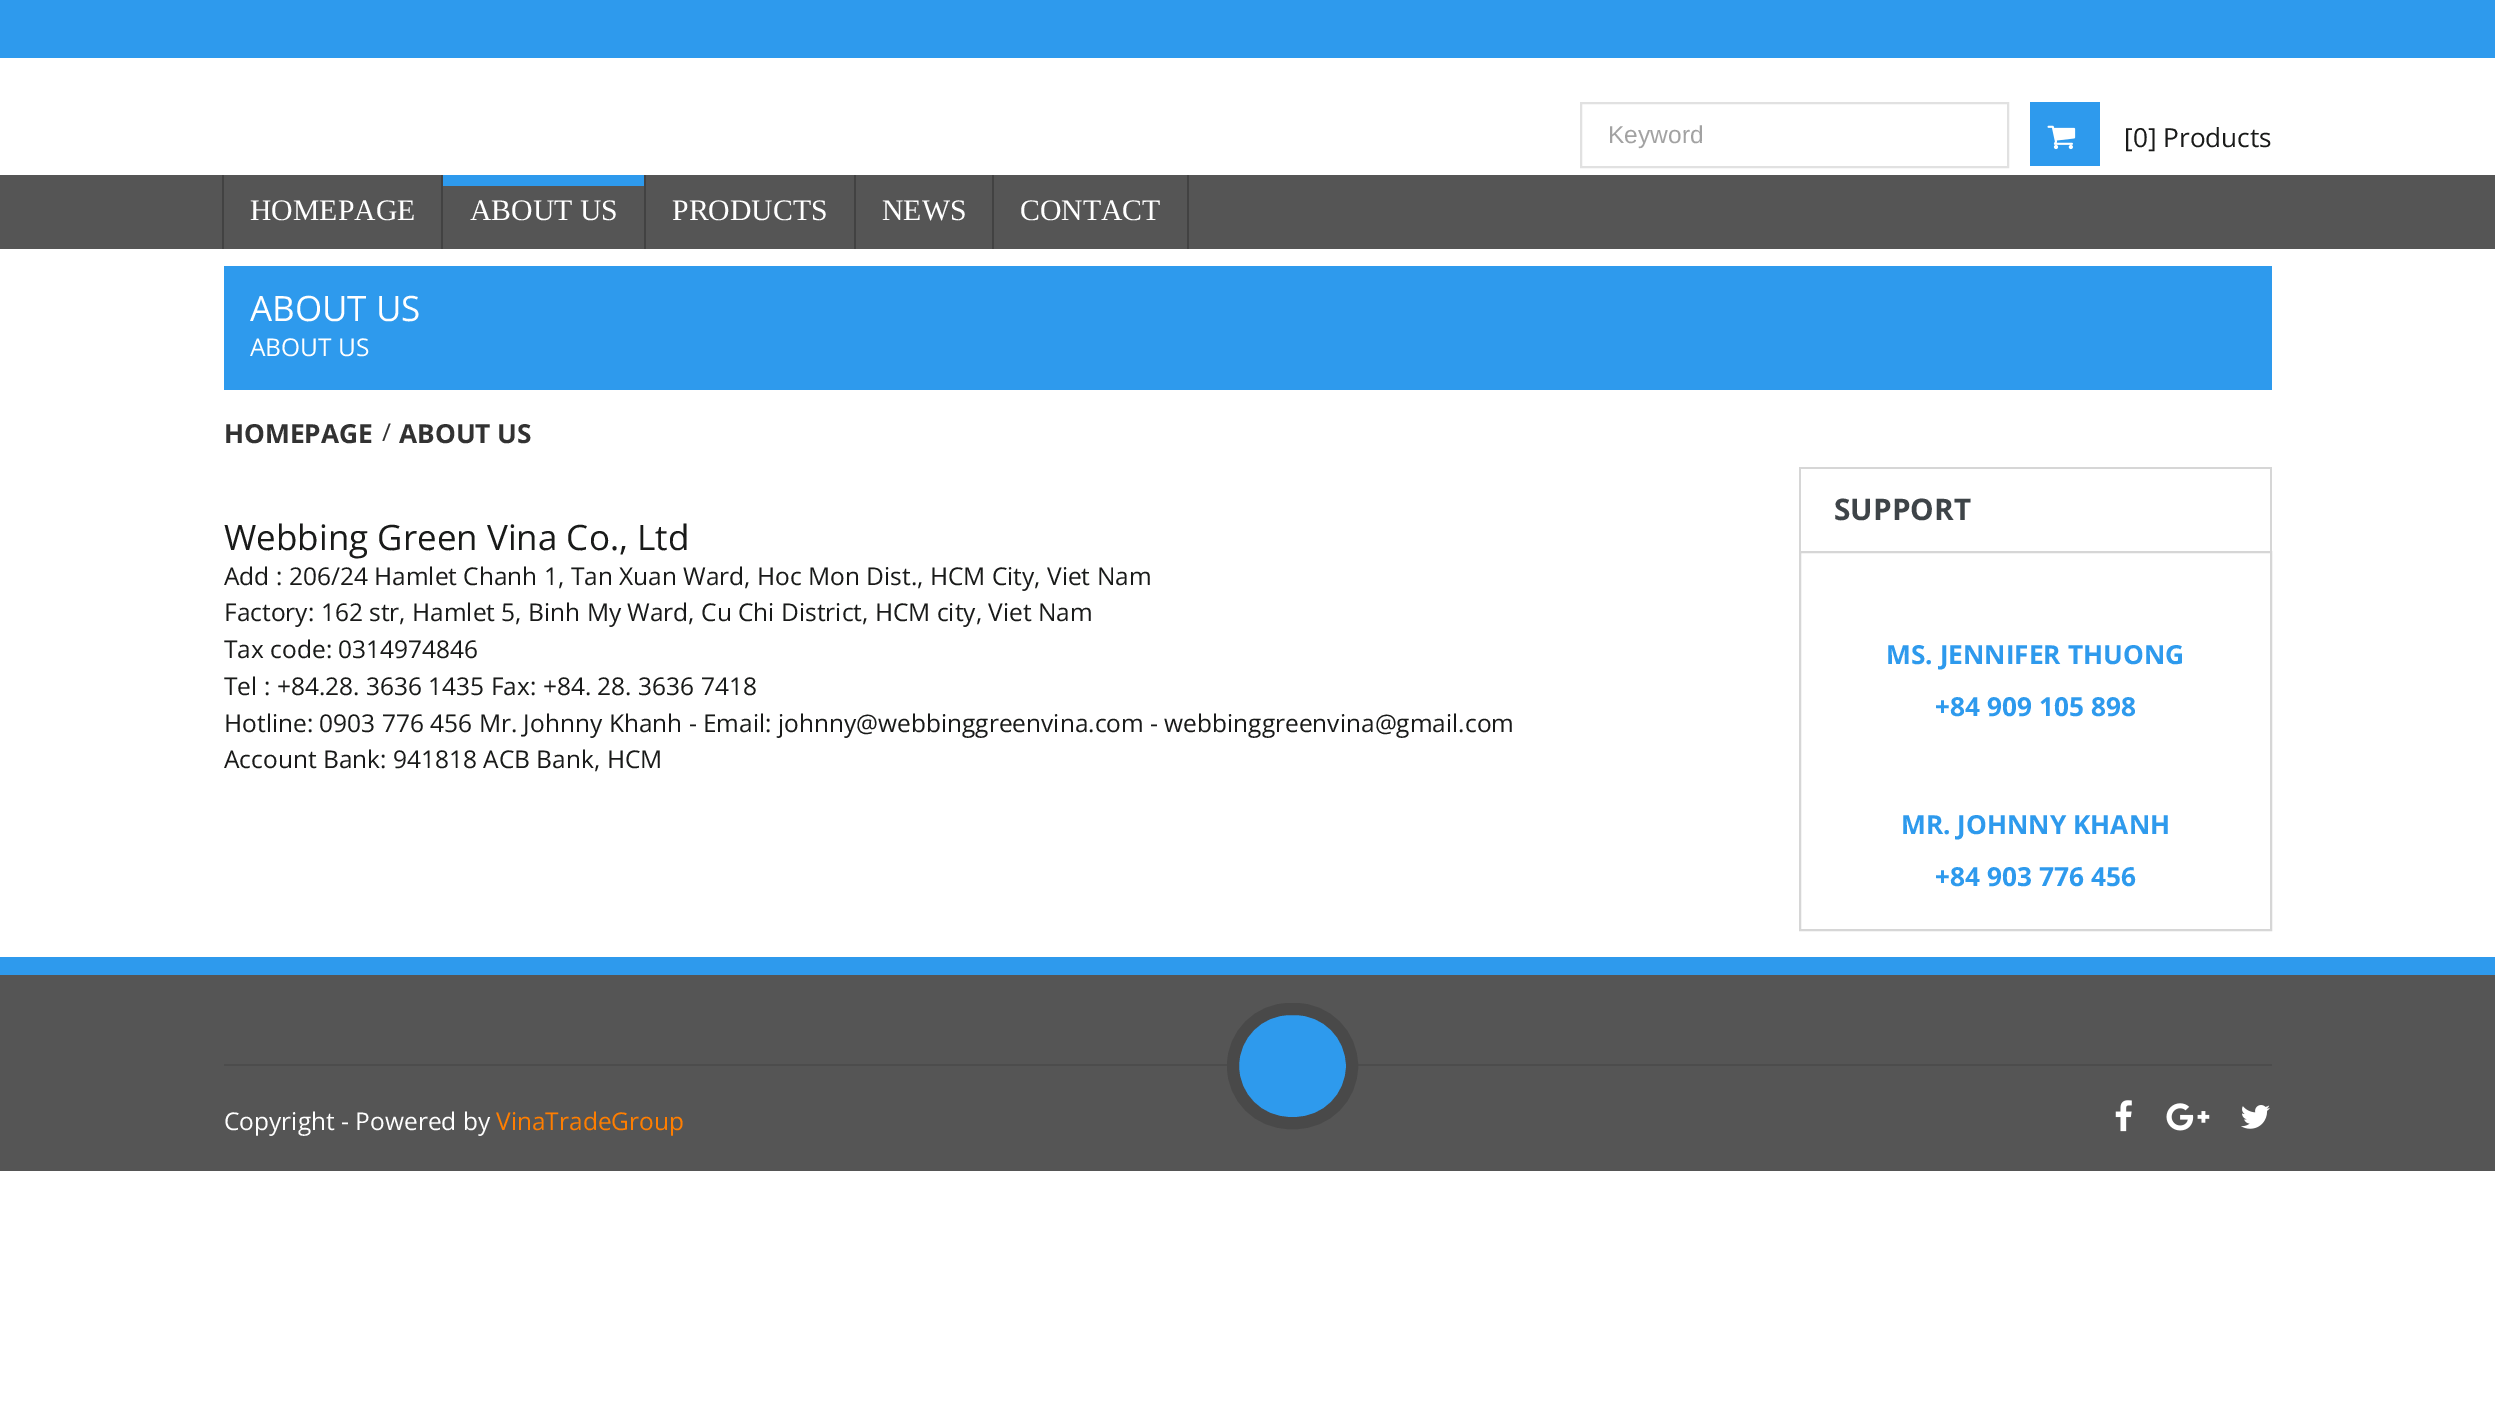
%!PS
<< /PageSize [2495 1417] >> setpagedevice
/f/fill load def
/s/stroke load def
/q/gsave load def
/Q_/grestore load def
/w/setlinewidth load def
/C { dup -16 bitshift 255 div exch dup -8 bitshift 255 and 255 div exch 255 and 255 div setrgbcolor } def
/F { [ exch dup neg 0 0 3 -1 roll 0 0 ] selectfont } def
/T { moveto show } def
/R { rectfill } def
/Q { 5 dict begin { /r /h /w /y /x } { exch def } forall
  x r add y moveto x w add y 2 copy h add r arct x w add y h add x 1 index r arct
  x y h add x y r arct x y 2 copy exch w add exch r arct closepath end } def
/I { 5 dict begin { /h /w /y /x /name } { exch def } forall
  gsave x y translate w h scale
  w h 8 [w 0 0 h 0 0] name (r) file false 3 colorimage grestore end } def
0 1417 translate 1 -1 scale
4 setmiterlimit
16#FFFFFF C
0 0 2495 1417 R
16#2E9AED C
0 0 2495 58 R
16#E1E1E1 C
2 w
1581 103 427 64 rectstroke
/LiberationSans-Regular 24.5 F
16#A2A2A2 C
(Keyword) 1608 143 T
16#2E9AED C
2030 102 70 64 R
(1.rgb) 2047 125 29 25 I
/OpenSans-Regular 26.25 F
16#191A19 C
([0] Products) 2124 147 T
16#555555 C
0 175 2495 74 R
16#424242 C
222 175 2 74 R
441 175 2 74 R
/LiberationSerif-Regular 29.75 F
16#FFFFFF C
(HOMEPAGE) 250 220 T
16#424242 C
644 175 2 74 R
16#2E9AED C
443 175 201 11 R
16#FFFFFF C
(ABOUT US) 470 220 T
16#424242 C
854 175 2 74 R
16#FFFFFF C
(PRODUCTS) 672 220 T
16#424242 C
992 175 2 74 R
16#FFFFFF C
(NEWS) 882 220 T
16#424242 C
1187 175 2 74 R
16#FFFFFF C
(CONTACT) 1020 220 T
16#2E9AED C
224 266 2048 124 R
/OpenSans-Regular 35 F
16#FFFFFF C
(ABOUT US) 250 321 T
/OpenSans-Regular 24.5 F
(ABOUT US) 250 356 T
/OpenSans-Bold 26.25 F
16#323232 C
(HOMEPAGE) 224 443 T
/OpenSans-Regular 24.5 F
(/) 382 441 T
/OpenSans-Bold 26.25 F
(ABOUT US) 399 443 T
/OpenSans-Regular 35 F
16#191A19 C
(Webbing Green Vina Co., Ltd) 224 550 T
/OpenSans-Regular 24.5 F
(Add : 206/24 Hamlet Chanh 1, Tan Xuan Ward, Hoc Mon Dist., HCM City, Viet Nam) 224 585 T
(Factory: 162 str, Hamlet 5, Binh My Ward, Cu Chi District, HCM city, Viet Nam) 224 621 T
(Tax code: 0314974846) 224 658 T
(Tel : +84.28. 3636 1435 Fax: +84. 28. 3636 7418) 224 695 T
(Hotline: 0903 776 456 Mr. Johnny Khanh - Email: johnny@webbinggreenvina.com - webbinggreenvina@gmail.com) 224 732 T
(Account Bank: 941818 ACB Bank, HCM) 224 768 T
16#D6D6D6 C
1799 467 473 2 R
2270 467 2 84 R
1799 467 2 84 R
/OpenSans-Bold 29.75 F
16#3E4448 C
(SUPPORT) 1834 520 T
16#D6D6D6 C
1800 552 471 378 rectstroke
/OpenSans-Bold 26.25 F
16#2E9AED C
(MS. JENNIFER THUONG) 1886 664 T
(+84 909 105 898) 1935 716 T
(MR. JOHNNY KHANH) 1901 834 T
(+84 903 776 456) 1935 886 T
0 957 2495 18 R
16#555555 C
0 975 2495 196 R
16#4C4C4C C
224 1064 2048 2 R
/OpenSans-Regular 24.5 F
16#FFFFFF C
(Copyright - Powered by) 224 1130 T
16#FF7E00 C
(VinaTradeGroup) 496 1130 T
16#2E9AED C
1233 1009 119 114 57 Q q f Q_
16#494949 C
12 w
s
(2.rgb) 2115 1100 17 32 I
(3.rgb) 2166 1103 44 28 I
(4.rgb) 2241 1105 29 24 I
showpage
